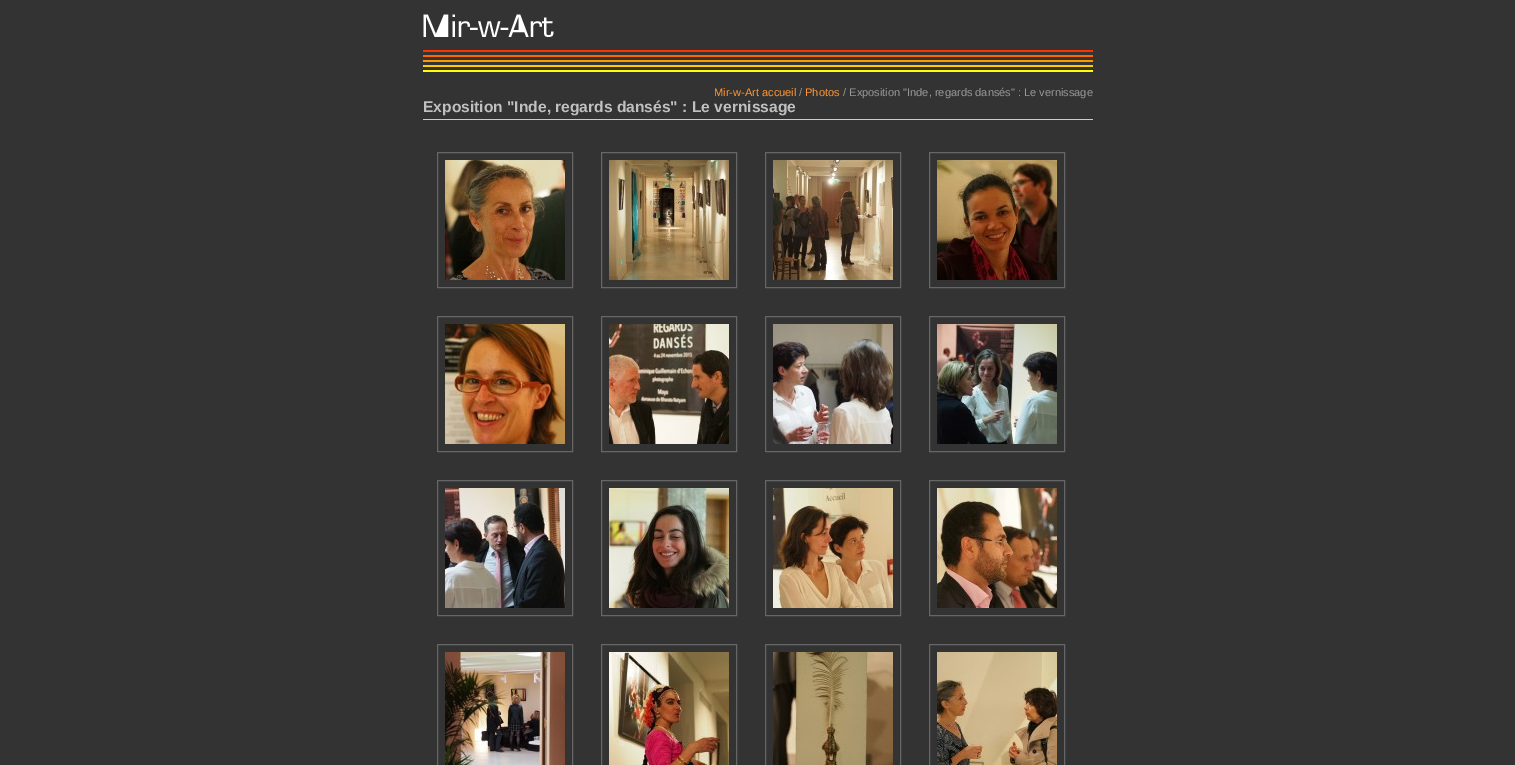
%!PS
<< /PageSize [1515 765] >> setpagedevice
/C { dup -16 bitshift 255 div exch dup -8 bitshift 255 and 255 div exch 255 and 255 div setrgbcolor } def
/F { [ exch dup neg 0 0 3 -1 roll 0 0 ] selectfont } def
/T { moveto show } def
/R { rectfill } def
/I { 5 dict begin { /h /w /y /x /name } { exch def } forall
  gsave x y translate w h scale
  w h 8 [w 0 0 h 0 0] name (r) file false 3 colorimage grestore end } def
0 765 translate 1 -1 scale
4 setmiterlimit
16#333333 C
0 0 1515 765 R
(1.rgb) 423 14 131 23 I
(2.rgb) 423 50 670 22 I
/LiberationSans-Regular 11.05 F
16#FF9933 C
(Mir-w-Art accueil) 714 96 T
16#999999 C
(/) 799 96 T
16#FF9933 C
(Photos) 805 96 T
16#999999 C
(/ Exposition "Inde, regards dansés" : Le vernissage) 843 96 T
16#CCCCCC C
423 119 670 1 R
/LiberationSans-Bold 15.6 F
16#C0C0C0 C
(Exposition "Inde, regards dansés" : Le vernissage) 423 112 T
16#666666 C
437.5 152.5 135 135 rectstroke
(3.rgb) 445 160 120 120 I
601.5 152.5 135 135 rectstroke
(4.rgb) 609 160 120 120 I
765.5 152.5 135 135 rectstroke
(5.rgb) 773 160 120 120 I
929.5 152.5 135 135 rectstroke
(6.rgb) 937 160 120 120 I
437.5 316.5 135 135 rectstroke
(7.rgb) 445 324 120 120 I
601.5 316.5 135 135 rectstroke
(8.rgb) 609 324 120 120 I
765.5 316.5 135 135 rectstroke
(9.rgb) 773 324 120 120 I
929.5 316.5 135 135 rectstroke
(10.rgb) 937 324 120 120 I
437.5 480.5 135 135 rectstroke
(11.rgb) 445 488 120 120 I
601.5 480.5 135 135 rectstroke
(12.rgb) 609 488 120 120 I
765.5 480.5 135 135 rectstroke
(13.rgb) 773 488 120 120 I
929.5 480.5 135 135 rectstroke
(14.rgb) 937 488 120 120 I
437.5 644.5 135 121 rectstroke
(15.rgb) 445 652 120 113 I
601.5 644.5 135 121 rectstroke
(16.rgb) 609 652 120 113 I
765.5 644.5 135 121 rectstroke
(17.rgb) 773 652 120 113 I
929.5 644.5 135 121 rectstroke
(18.rgb) 937 652 120 113 I
showpage
